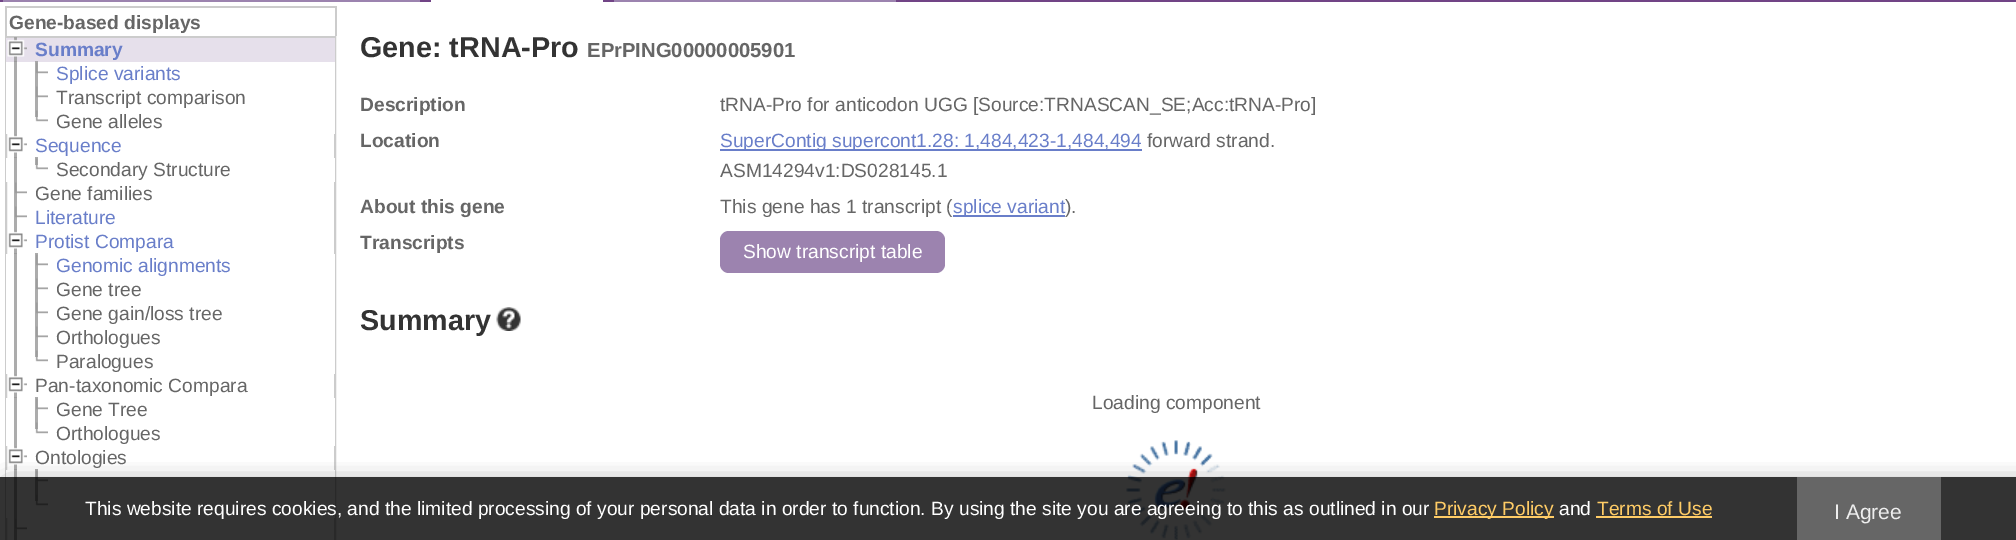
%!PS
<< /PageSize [2016 540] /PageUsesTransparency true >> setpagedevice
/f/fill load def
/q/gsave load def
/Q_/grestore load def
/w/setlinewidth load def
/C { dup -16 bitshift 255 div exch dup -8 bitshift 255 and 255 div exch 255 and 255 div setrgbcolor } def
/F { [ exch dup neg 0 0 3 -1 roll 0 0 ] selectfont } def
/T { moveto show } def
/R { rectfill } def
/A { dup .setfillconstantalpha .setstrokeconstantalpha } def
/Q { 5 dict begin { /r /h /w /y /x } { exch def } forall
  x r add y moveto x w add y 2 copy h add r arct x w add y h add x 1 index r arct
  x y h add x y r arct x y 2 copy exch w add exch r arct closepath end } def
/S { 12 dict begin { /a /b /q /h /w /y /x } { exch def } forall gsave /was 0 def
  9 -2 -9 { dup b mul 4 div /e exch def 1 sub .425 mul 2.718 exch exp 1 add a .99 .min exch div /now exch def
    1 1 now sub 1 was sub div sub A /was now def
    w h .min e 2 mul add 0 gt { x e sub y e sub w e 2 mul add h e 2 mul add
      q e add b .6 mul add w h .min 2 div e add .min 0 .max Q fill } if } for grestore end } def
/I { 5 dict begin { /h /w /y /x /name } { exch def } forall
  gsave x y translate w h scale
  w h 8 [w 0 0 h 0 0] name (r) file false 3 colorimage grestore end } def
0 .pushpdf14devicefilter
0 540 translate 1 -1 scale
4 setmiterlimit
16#FFFFFF C
0 0 2016 540 R
16#714486 C
0 0 2016 2 R
16#9C83AF C
3 0 417 2 R
16#FFFFFF C
431 0 172 2 R
16#9C83AF C
614 0 282 2 R
16#CCCCCC C
5 6 331 2 R
335 6 2 30 R
5 6 2 30 R
/LiberationSans-Bold 19.2 F
16#666666 C
(Gene-based displays) 9 29 T
16#CCCCCC C
2 w
6 37 329 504 rectstroke
16#E6E0EB C
6 38 329 24 R
16#A8A6A9 C
35 61 3 1 R
0.81 A
16#999999 C
14 37 3 25 R
1 A
(1.rgb) 7 38 20 19 I
16#697EC9 C
(Summary) 35 56 T
16#FFFFFF C
6 62 329 72 R
16#ACACAC C
35 62 3 55 R
0.81 A
16#999999 C
14 61 3 72 R
1 A
(2.rgb) 36 62 12 12 I
/LiberationSans-Regular 19.2 F
16#697EC9 C
(Splice variants) 56 80 T
(3.rgb) 36 86 12 12 I
16#666666 C
(Transcript comparison) 56 104 T
(4.rgb) 35 110 13 12 I
(Gene alleles) 56 128 T
16#ACACAC C
14 133 3 24 R
16#9D9D9D C
14 157 3 1 R
(5.rgb) 8 134 19 19 I
16#697EC9 C
(Sequence) 35 152 T
16#FFFFFF C
6 158 329 24 R
16#ACACAC C
14 158 3 95 R
35 157 3 8 R
(4.rgb) 35 158 13 12 I
16#666666 C
(Secondary Structure) 56 176 T
(3.rgb) 15 182 12 12 I
(Gene families) 35 200 T
(3.rgb) 15 206 12 12 I
16#697EC9 C
(Literature) 35 224 T
16#9D9D9D C
14 253 3 1 R
(5.rgb) 8 230 19 19 I
16#697EC9 C
(Protist Compara) 35 248 T
16#FFFFFF C
6 254 329 120 R
16#ACACAC C
14 254 3 143 R
35 253 3 104 R
(3.rgb) 36 254 12 12 I
16#697EC9 C
(Genomic alignments) 56 272 T
(3.rgb) 36 278 12 12 I
16#666666 C
(Gene tree) 56 296 T
(3.rgb) 36 302 12 12 I
(Gene gain/loss tree) 56 320 T
(3.rgb) 36 326 12 12 I
(Orthologues) 56 344 T
(4.rgb) 35 350 13 12 I
(Paralogues) 56 368 T
16#9D9D9D C
14 397 3 1 R
(5.rgb) 8 374 19 19 I
16#666666 C
(Pan-taxonomic Compara) 35 392 T
16#FFFFFF C
6 398 329 48 R
16#ACACAC C
14 398 3 71 R
35 397 3 32 R
(3.rgb) 36 398 12 12 I
16#666666 C
(Gene Tree) 56 416 T
(4.rgb) 35 422 13 12 I
(Orthologues) 56 440 T
16#9D9D9D C
14 469 3 1 R
(5.rgb) 8 446 19 19 I
16#666666 C
(Ontologies) 35 464 T
16#FFFFFF C
6 470 329 48 R
16#ACACAC C
14 470 3 70 R
35 469 3 32 R
(3.rgb) 36 470 12 12 I
(4.rgb) 35 494 13 12 I
(3.rgb) 15 518 12 12 I
/LiberationSans-Bold 28.75 F
16#333333 C
(Gene: tRNA-Pro) 360 57 T
/LiberationSans-Bold 20.25 F
16#666666 C
(EPrPING00000005901) 587 57 T
/LiberationSans-Bold 19.2 F
(Description) 360 111 T
/LiberationSans-Regular 19.2 F
(tRNA-Pro for anticodon UGG [Source:TRNASCAN_SE;Acc:tRNA-Pro]) 720 111 T
/LiberationSans-Bold 19.2 F
(Location) 360 147 T
16#697EC9 C
720 149 422 2 R
/LiberationSans-Regular 19.2 F
(SuperContig supercont1.28: 1,484,423-1,484,494) 720 147 T
16#666666 C
(forward strand.) 1147 147 T
(ASM14294v1:DS028145.1) 720 177 T
/LiberationSans-Bold 19.2 F
(About this gene) 360 213 T
/LiberationSans-Regular 19.2 F
(This gene has 1 transcript \() 720 213 T
16#697EC9 C
953 215 112 2 R
(splice variant) 953 213 T
16#666666 C
(\).) 1065 213 T
/LiberationSans-Bold 19.2 F
(Transcripts) 360 249 T
16#9C83AF C
720 231 225 42 9 Q f
/LiberationSans-Regular 19.2 F
16#FFFFFF C
(Show transcript table) 743 258 T
/LiberationSans-Bold 28.75 F
16#333333 C
(Summary) 360 330 T
(6.rgb) 496 307 25 24 I
(7.rgb) 1126 440 100 100 I
/LiberationSans-Regular 19.2 F
16#666666 C
(Loading component) 1092 409 T
q
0 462 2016 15 rectclip
8 485 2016 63 0 11 1 S
Q_
0.8 A
16#000000 C
0 477 2016 63 R
1 A
16#FFFFFF C
(This website requires cookies, and the limited processing of your personal data in order to function. By using the site you are agreeing to this as outlined in our) 85 515 T
16#FFCC66 C
1434 516 120 2 R
(Privacy Policy) 1434 515 T
16#FFFFFF C
(and) 1559 515 T
16#FFCC66 C
(Terms of Use) 1597 515 T
1596 516 116 2 R
16#666666 C
1797 477 144 63 R
/LiberationSans-Regular 21 F
16#EEEEEE C
(I Agree) 1834 519 T
.poppdf14devicefilter showpage
